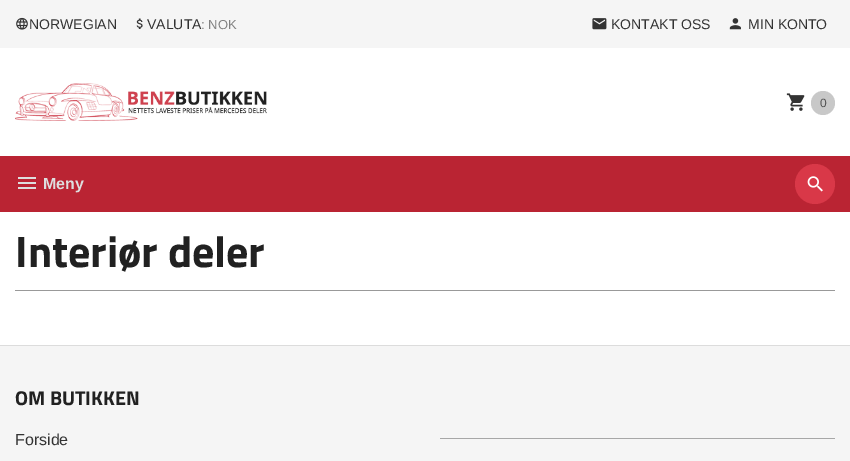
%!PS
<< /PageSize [850 461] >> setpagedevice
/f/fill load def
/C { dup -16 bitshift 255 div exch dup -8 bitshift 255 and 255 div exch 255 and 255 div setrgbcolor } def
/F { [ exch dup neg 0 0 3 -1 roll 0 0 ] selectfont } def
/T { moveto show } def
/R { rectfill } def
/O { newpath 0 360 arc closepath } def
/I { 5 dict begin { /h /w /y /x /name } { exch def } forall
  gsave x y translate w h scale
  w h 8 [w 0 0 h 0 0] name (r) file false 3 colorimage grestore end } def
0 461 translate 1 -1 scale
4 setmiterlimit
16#FFFFFF C
0 0 850 461 R
16#F5F5F5 C
0 0 850 48 R
(1.rgb) 16 17 12 13 I
/LiberationSans-Regular 14 F
16#333333 C
(NORWEGIAN) 29 29 T
(2.rgb) 136 18 7 11 I
(VALUTA) 147 29 T
/LiberationSans-Regular 13 F
16#818181 C
(: NOK) 201 29 T
(3.rgb) 592 18 15 12 I
/LiberationSans-Regular 14 F
16#333333 C
(KONTAKT OSS) 611 29 T
(4.rgb) 729 18 12 12 I
(MIN KONTO) 748 29 T
(5.rgb) 15 83 252 38 I
(6.rgb) 786 93 19 18 I
16#C8C8C8 C
823 103 12 O f
/LiberationSans-Regular 12 F
16#525252 C
(0) 820 107 T
16#BA2433 C
0 156 850 56 R
(7.rgb) 18 177 18 12 I
/LiberationSans-Bold 16 F
16#DEDEDE C
(Meny) 43 189 T
16#D93848 C
815 184 20 O f
(8.rgb) 807 176 16 16 I
16#999999 C
15 290 820 1 R
/TitilliumWeb-Bold 44 F
16#212121 C
(Interiør deler) 15 267 T
16#F5F5F5 C
0 346 850 115 R
16#DCDCDC C
0 345 850 1 R
/TitilliumWeb-Bold 20 F
16#212121 C
(OM BUTIKKEN) 15 405 T
/LiberationSans-Regular 16 F
16#333333 C
(Forside) 15 445 T
16#A7A7A7 C
440 438 395 1 R
showpage
